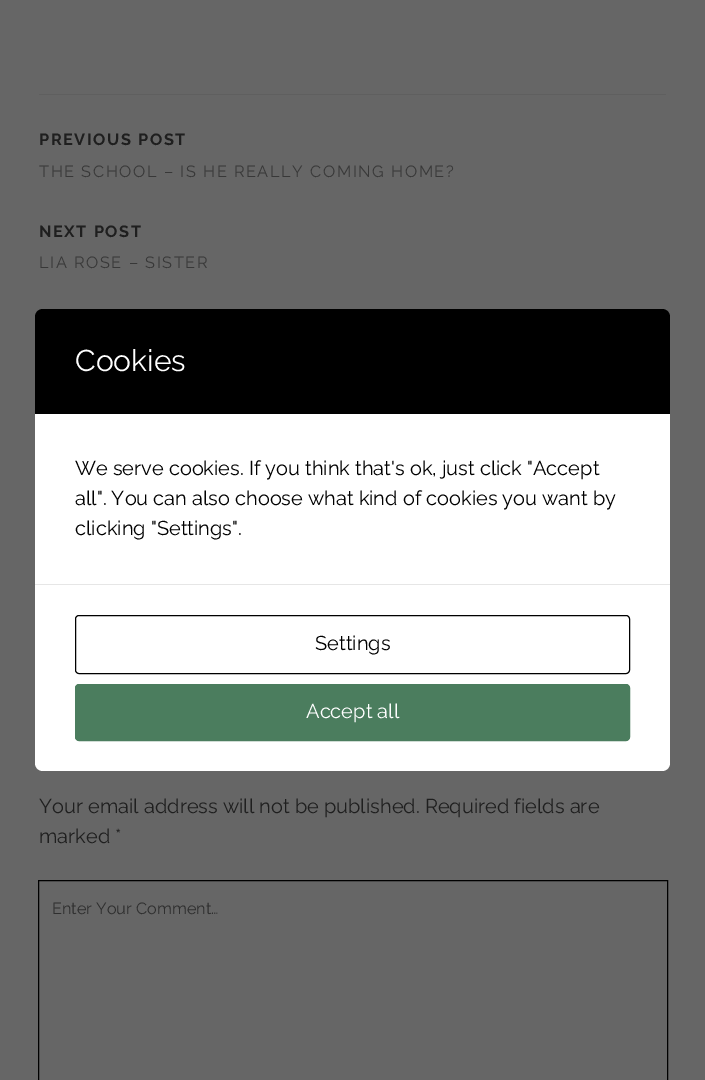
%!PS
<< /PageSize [705 1080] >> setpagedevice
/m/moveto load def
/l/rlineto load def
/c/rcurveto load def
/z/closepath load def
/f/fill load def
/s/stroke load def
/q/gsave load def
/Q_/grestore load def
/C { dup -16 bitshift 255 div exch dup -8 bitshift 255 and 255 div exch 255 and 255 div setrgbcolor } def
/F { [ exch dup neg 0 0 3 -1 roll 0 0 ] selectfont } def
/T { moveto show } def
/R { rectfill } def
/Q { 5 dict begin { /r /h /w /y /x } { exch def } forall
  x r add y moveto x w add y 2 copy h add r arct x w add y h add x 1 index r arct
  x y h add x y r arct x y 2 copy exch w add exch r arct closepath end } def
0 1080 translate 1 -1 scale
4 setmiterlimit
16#666666 C
0 0 705 1080 R
16#5F5F5F C
39 94 627 1 R
/Raleway-Bold 16.25 F
16#1F1F1F C
39 145 m 1.6 0 (PREVIOUS POST) ashow
/Raleway-Regular 16.25 F
16#383838 C
39 177 m 1.6 0 (THE SCHOOL – IS HE REALLY COMING HOME?) ashow
/Raleway-Bold 16.25 F
16#1F1F1F C
39 237 m 1.6 0 (NEXT POST) ashow
/Raleway-Regular 16.25 F
16#383838 C
39 268 m 1.6 0 (LIA ROSE – SISTER) ashow
/Raleway-Regular 20 F
16#1F1F1F C
(Your email address will not be published. Required fields are) 39 813 T
(marked *) 39 843 T
16#000000 C
38.5 880.5 629 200 rectstroke
/Raleway-Regular 16.25 F
16#2F2F2F C
(Enter Your Comment…) 52 914 T
16#000000 C
43 309 m 619 0 l 4.5 0 8 3.5 8 8 c 0 97 l -635 0 l 0 -97 l 0 -4.5 3.5 -8 8 -8 c z f
/Raleway-Regular 30 F
16#FFFFFF C
(Cookies) 75 371 T
35 414 635 170 R
/Raleway-Regular 20 F
16#000000 C
(We serve cookies. If you think that's ok, just click "Accept) 75 475 T
(all". You can also choose what kind of cookies you want by) 75 505 T
(clicking "Settings".) 75 535 T
16#FFFFFF C
35 584 m 635 0 l 0 179 l 0 4.5 -3.5 8 -8 8 c -619 0 l -4.5 0 -8 -3.5 -8 -8 c z f
16#E6E6E6 C
35 584 635 1 R
16#000000 C
75.5 615.5 554 58 3.5 Q s
(Settings) 315 650 T
16#4B7D5E C
75.5 684.5 554 56 3.5 Q q f Q_
s
16#FFFFFF C
(Accept all) 306 718 T
showpage
